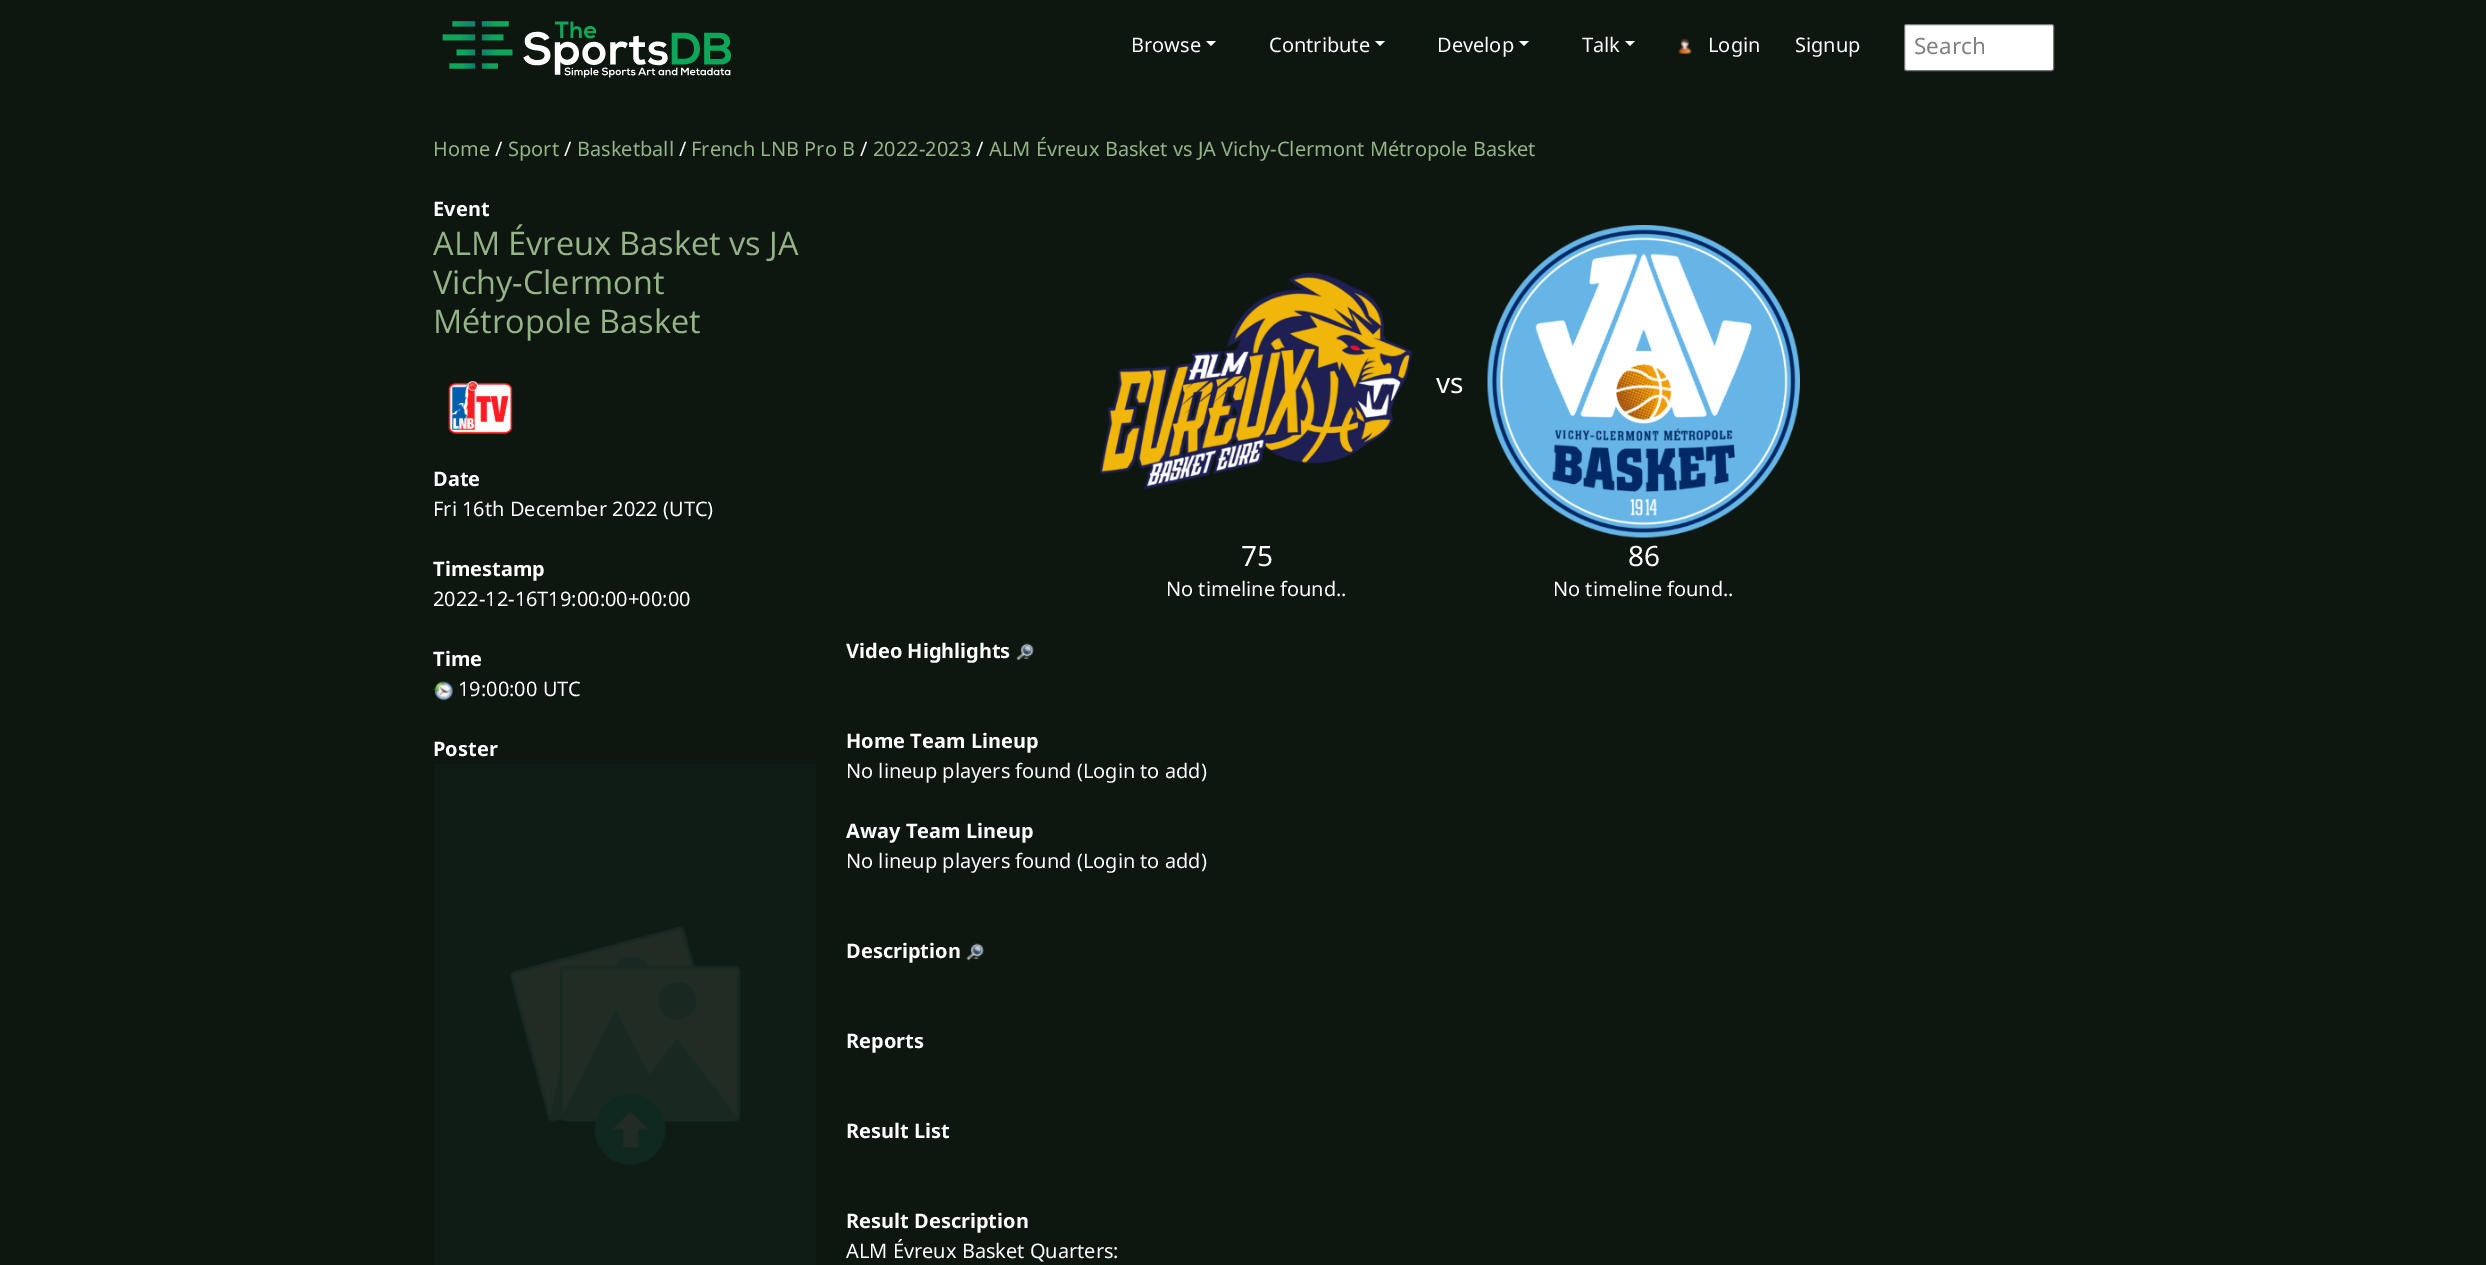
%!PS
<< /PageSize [2486 1265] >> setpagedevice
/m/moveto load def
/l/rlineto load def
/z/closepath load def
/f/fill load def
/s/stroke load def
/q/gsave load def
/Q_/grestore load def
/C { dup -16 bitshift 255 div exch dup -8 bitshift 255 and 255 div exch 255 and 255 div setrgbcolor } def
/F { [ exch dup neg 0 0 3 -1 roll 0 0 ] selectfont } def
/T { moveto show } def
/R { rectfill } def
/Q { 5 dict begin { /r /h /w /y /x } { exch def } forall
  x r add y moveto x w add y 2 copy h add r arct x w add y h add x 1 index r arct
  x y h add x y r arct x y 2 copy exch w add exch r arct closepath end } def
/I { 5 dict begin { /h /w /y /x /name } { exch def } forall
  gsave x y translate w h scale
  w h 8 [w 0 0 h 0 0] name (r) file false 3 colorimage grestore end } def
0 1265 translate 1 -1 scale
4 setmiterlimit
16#0D170F C
0 0 2486 1265 R
(1.rgb) 442 21 290 57 I
/NotoSans-Regular 20 F
16#FFFFFF C
(Browse) 1131 52 T
1206 41 m 10 0 l -5 5 l z f
(Contribute) 1269 52 T
1375 41 m 10 0 l -5 5 l z f
(Develop) 1437 52 T
1519 41 m 10 0 l -5 5 l z f
(Talk) 1582 52 T
1625 41 m 10 0 l -5 5 l z f
(2.rgb) 1678 38 14 16 I
(Login) 1708 52 T
(Signup) 1795 52 T
1904.5 24.5 149 46 2 Q q f Q_
16#767676 C
s
/NotoSans-Regular 22.5 F
16#808080 C
(Search) 1914 54 T
/NotoSans-Regular 20 F
16#94B387 C
(Home) 433 156 T
16#FFFFFF C
(/) 495 156 T
16#94B387 C
(Sport) 508 156 T
16#FFFFFF C
(/) 564 156 T
16#94B387 C
(Basketball) 577 156 T
16#FFFFFF C
(/) 679 156 T
16#94B387 C
(French LNB Pro B) 691 156 T
16#FFFFFF C
(/) 860 156 T
16#94B387 C
(2022-2023) 873 156 T
16#FFFFFF C
(/) 976 156 T
16#94B387 C
(ALM Évreux Basket vs JA Vichy-Clermont Métropole Basket) 989 156 T
/NotoSans-Bold 20 F
16#FFFFFF C
(Event) 433 216 T
/OpenSans-Regular 32.5 F
16#94B387 C
(ALM Évreux Basket vs JA) 433 255 T
(Vichy-Clermont) 433 294 T
(Métropole Basket) 433 333 T
(3.rgb) 448 381 65 53 I
/NotoSans-Bold 20 F
16#FFFFFF C
(Date) 433 486 T
/NotoSans-Regular 20 F
(Fri 16th December 2022 \(UTC\)) 433 516 T
/NotoSans-Bold 20 F
(Timestamp) 433 576 T
/NotoSans-Regular 20 F
(2022-12-16T19:00:00+00:00) 433 606 T
/NotoSans-Bold 20 F
(Time) 433 666 T
(4.rgb) 433 681 21 20 I
/NotoSans-Regular 20 F
(19:00:00 UTC) 458 696 T
/NotoSans-Bold 20 F
(Poster) 433 756 T
(5.rgb) 434 764 382 501 I
(6.rgb) 1100 272 313 218 I
/NotoSans-Regular 28 F
(vs) 1436 393 T
(7.rgb) 1487 225 313 313 I
(75) 1241 566 T
/NotoSans-Regular 20 F
(No timeline found..) 1166 596 T
/NotoSans-Regular 28 F
(86) 1628 566 T
/NotoSans-Regular 20 F
(No timeline found..) 1553 596 T
/NotoSans-Bold 20 F
(Video Highlights) 846 658 T
(8.rgb) 1016 643 18 18 I
(Home Team Lineup) 846 748 T
/NotoSans-Regular 20 F
(No lineup players found \(Login to add\)) 846 778 T
/NotoSans-Bold 20 F
(Away Team Lineup) 846 838 T
/NotoSans-Regular 20 F
(No lineup players found \(Login to add\)) 846 868 T
/NotoSans-Bold 20 F
(Description) 846 958 T
(9.rgb) 966 943 18 18 I
(Reports) 846 1048 T
(Result List) 846 1138 T
(Result Description) 846 1228 T
/NotoSans-Regular 20 F
(ALM Évreux Basket Quarters:) 846 1258 T
showpage
